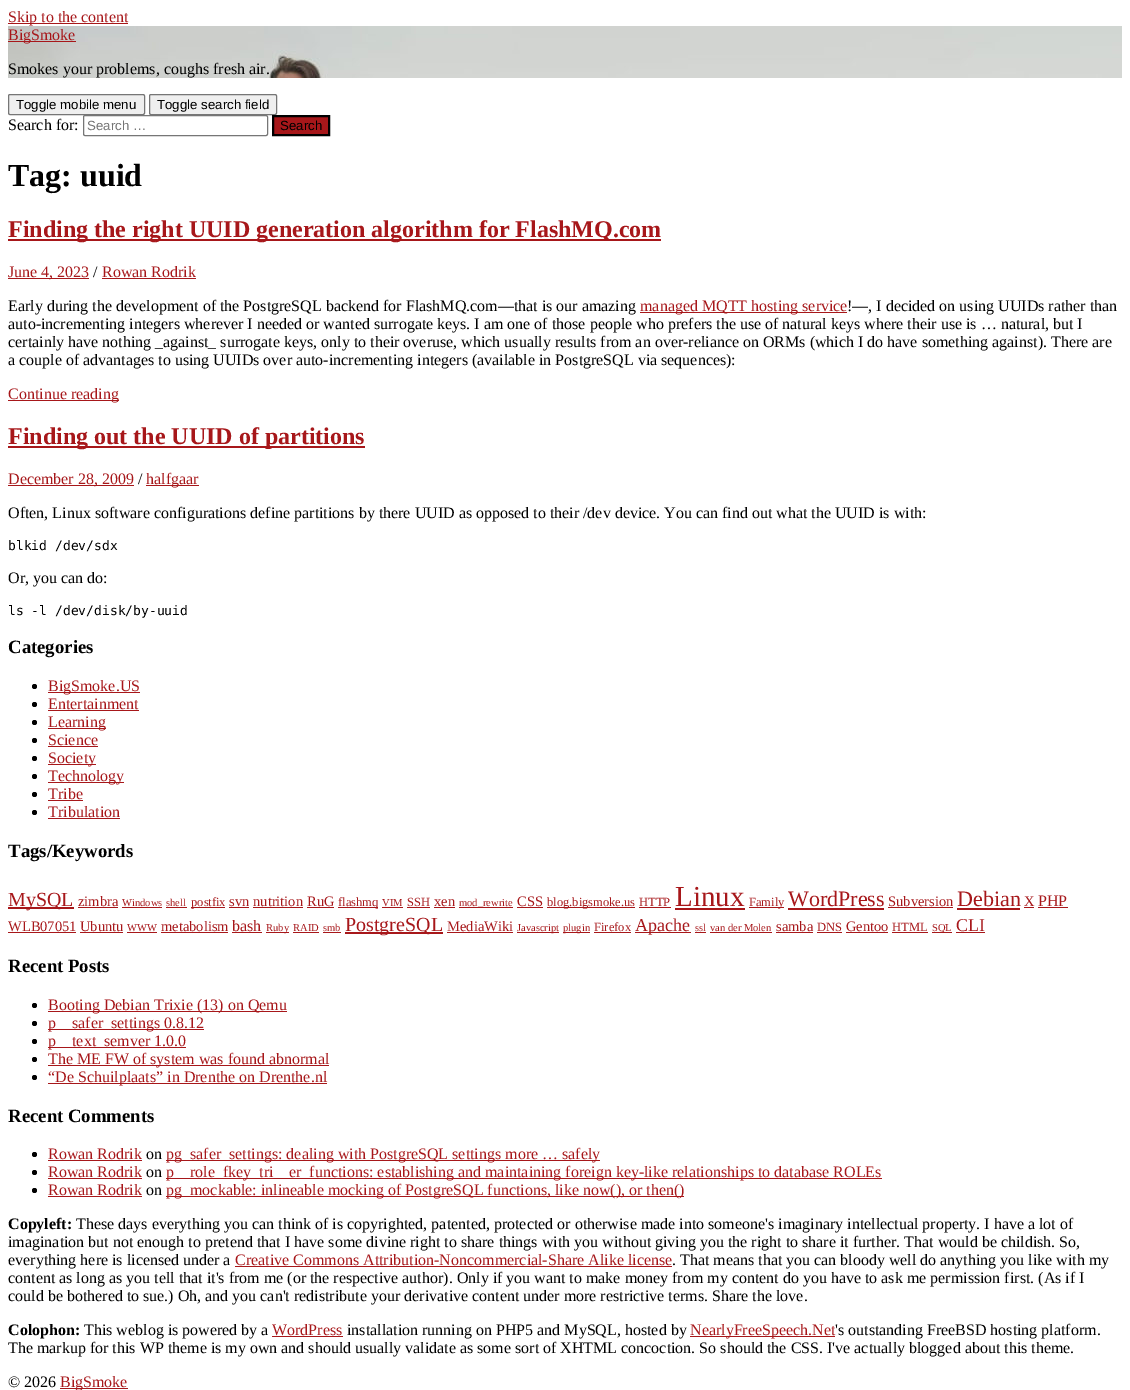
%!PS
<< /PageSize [1130 1390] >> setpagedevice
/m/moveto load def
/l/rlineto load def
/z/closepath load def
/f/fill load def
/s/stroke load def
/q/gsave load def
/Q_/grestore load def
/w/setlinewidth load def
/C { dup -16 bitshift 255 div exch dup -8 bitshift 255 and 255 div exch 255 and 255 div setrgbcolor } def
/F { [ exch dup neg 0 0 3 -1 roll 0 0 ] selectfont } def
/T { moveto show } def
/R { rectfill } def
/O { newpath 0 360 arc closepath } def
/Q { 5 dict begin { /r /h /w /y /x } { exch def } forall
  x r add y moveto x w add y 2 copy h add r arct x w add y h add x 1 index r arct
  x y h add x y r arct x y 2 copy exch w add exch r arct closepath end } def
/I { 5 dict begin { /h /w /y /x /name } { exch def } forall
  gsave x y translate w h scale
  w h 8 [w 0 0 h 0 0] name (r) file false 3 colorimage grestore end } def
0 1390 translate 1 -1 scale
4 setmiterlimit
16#FFFFFF C
0 0 1130 1390 R
16#A7171A C
8 23 120 1 R
/LiberationSerif-Regular 16 F
(Skip to the content) 8 22 T
(1.rgb) 8 26 1114 52 I
8 41 68 1 R
(BigSmoke) 8 40 T
16#000000 C
(Smokes your problems, coughs fresh air.) 8 74 T
16#EFEFEF C
8.5 94.5 136 20 1.5 Q q f Q_
16#767676 C
s
/LiberationSans-Regular 13.25 F
16#000000 C
(Toggle mobile menu) 16 109 T
16#EFEFEF C
149.5 94.5 127 20 1.5 Q q f Q_
16#767676 C
s
16#000000 C
(Toggle search field) 157 109 T
/LiberationSerif-Regular 16 F
(Search for:) 8 130 T
16#767676 C
83.5 115.5 184 20 1.5 Q s
/LiberationSans-Regular 13.25 F
16#757575 C
(Search …) 87 130 T
16#A7171A C
273 116 m 56 0 l 0 19 l -56 0 l z q f Q_
16#000000 C
2 w
s
(Search) 280 130 T
/LiberationSerif-Bold 32 F
(Tag: uuid) 8 186 T
16#A7171A C
8 239 653 2 R
/LiberationSerif-Bold 24 F
(Finding the right UUID generation algorithm for FlashMQ.com) 8 237 T
8 278 81 1 R
/LiberationSerif-Regular 16 F
(June 4, 2023) 8 277 T
16#000000 C
(/) 93 277 T
16#A7171A C
(Rowan Rodrik) 102 277 T
102 278 94 1 R
16#000000 C
(Early during the development of the PostgreSQL backend for FlashMQ.com—that is our amazing) 8 311 T
16#A7171A C
640 312 207 1 R
(managed MQTT hosting service) 640 311 T
16#000000 C
(!—, I decided on using UUIDs rather than) 847 311 T
(auto-incrementing integers wherever I needed or wanted surrogate keys. I am one of those people who prefers the use of natural keys where their use is … natural, but I) 8 329 T
(certainly have nothing _against_ surrogate keys, only to their overuse, which usually results from an over-reliance on ORMs \(which I do have something against\). There are) 8 347 T
(a couple of advantages to using UUIDs over auto-incrementing integers \(available in PostgreSQL via sequences\):) 8 365 T
16#A7171A C
8 400 111 1 R
(Continue reading) 8 399 T
8 446 357 2 R
/LiberationSerif-Bold 24 F
(Finding out the UUID of partitions) 8 444 T
8 485 126 1 R
/LiberationSerif-Regular 16 F
(December 28, 2009) 8 484 T
16#000000 C
(/) 138 484 T
16#A7171A C
146 485 53 1 R
(halfgaar) 146 484 T
16#000000 C
(Often, Linux software configurations define partitions by there UUID as opposed to their /dev device. You can find out what the UUID is with:) 8 518 T
/DejaVuSansMono-Regular 13 F
(blkid /dev/sdx) 8 550 T
/LiberationSerif-Regular 16 F
(Or, you can do:) 8 583 T
/DejaVuSansMono-Regular 13 F
(ls -l /dev/disk/by-uuid) 8 615 T
/LiberationSerif-Bold 18.75 F
(Categories) 8 653 T
34.5 686.5 2.5 O f
16#A7171A C
48 692 92 1 R
/LiberationSerif-Regular 16 F
(BigSmoke.US) 48 691 T
16#000000 C
34.5 704.5 2.5 O f
16#A7171A C
(Entertainment) 48 709 T
48 710 91 1 R
16#000000 C
34.5 722.5 2.5 O f
16#A7171A C
48 728 58 1 R
(Learning) 48 727 T
16#000000 C
34.5 740.5 2.5 O f
16#A7171A C
(Science) 48 745 T
48 746 50 1 R
16#000000 C
34.5 758.5 2.5 O f
16#A7171A C
48 764 48 1 R
(Society) 48 763 T
16#000000 C
34.5 776.5 2.5 O f
16#A7171A C
48 782 76 1 R
(Technology) 48 781 T
16#000000 C
34.5 794.5 2.5 O f
16#A7171A C
(Tribe) 48 799 T
48 800 35 1 R
16#000000 C
34.5 812.5 2.5 O f
16#A7171A C
(Tribulation) 48 817 T
48 818 72 1 R
/LiberationSerif-Bold 18.75 F
16#000000 C
(Tags/Keywords) 8 857 T
16#A7171A C
8 907 66 2 R
/LiberationSerif-Regular 20 F
(MySQL) 8 906 T
/LiberationSerif-Regular 14.5 F
(zimbra) 78 906 T
78 907 40 1 R
/LiberationSerif-Regular 10.5 F
(Windows) 122 906 T
122 907 40 1 R
(shell) 166 906 T
166 907 21 1 R
191 907 34 1 R
/LiberationSerif-Regular 12.5 F
(postfix) 191 906 T
/LiberationSerif-Regular 14.5 F
(svn) 229 906 T
229 907 20 1 R
(nutrition) 253 906 T
253 907 50 1 R
(RuG) 307 906 T
307 907 27 1 R
338 907 40 1 R
/LiberationSerif-Regular 12.5 F
(flashmq) 338 906 T
/LiberationSerif-Regular 10.5 F
(VIM) 382 906 T
382 907 21 1 R
/LiberationSerif-Regular 12.5 F
(SSH) 407 906 T
407 907 23 1 R
/LiberationSerif-Regular 14.5 F
(xen) 434 906 T
434 907 21 1 R
459 907 54 1 R
/LiberationSerif-Regular 10.5 F
(mod_rewrite) 459 906 T
/LiberationSerif-Regular 14.5 F
(CSS) 517 906 T
517 907 26 1 R
547 907 88 1 R
/LiberationSerif-Regular 12.5 F
(blog.bigsmoke.us) 547 906 T
(HTTP) 639 906 T
639 907 32 1 R
/LiberationSerif-Regular 29 F
(Linux) 675 906 T
675 908 70 2 R
749 907 35 1 R
/LiberationSerif-Regular 12.5 F
(Family) 749 906 T
/LiberationSerif-Regular 22 F
(WordPress) 788 906 T
788 908 96 2 R
/LiberationSerif-Regular 14.5 F
(Subversion) 888 906 T
888 907 65 1 R
/LiberationSerif-Regular 22 F
(Debian) 957 906 T
957 908 63 2 R
/LiberationSerif-Regular 14.5 F
(X) 1024 906 T
1024 907 10 1 R
/LiberationSerif-Regular 16 F
(PHP) 1038 906 T
1038 907 30 1 R
/LiberationSerif-Regular 14.5 F
(WLB07051) 8 931 T
8 932 68 1 R
(Ubuntu) 80 931 T
80 932 43 1 R
/LiberationSerif-Regular 10.5 F
(WWW) 127 931 T
127 932 30 1 R
/LiberationSerif-Regular 14.5 F
(metabolism) 161 931 T
161 932 67 1 R
/LiberationSerif-Regular 16 F
(bash) 232 931 T
232 932 30 1 R
266 932 23 1 R
/LiberationSerif-Regular 10.5 F
(Ruby) 266 931 T
(RAID) 293 931 T
293 932 26 1 R
(smb) 323 931 T
323 932 18 1 R
345 932 98 2 R
/LiberationSerif-Regular 20 F
(PostgreSQL) 345 931 T
/LiberationSerif-Regular 14.5 F
(MediaWiki) 447 931 T
447 932 66 1 R
517 932 42 1 R
/LiberationSerif-Regular 10.5 F
(Javascript) 517 931 T
563 932 27 1 R
(plugin) 563 931 T
/LiberationSerif-Regular 12.5 F
(Firefox) 594 931 T
594 932 37 1 R
635 932 56 1 R
/LiberationSerif-Regular 18 F
(Apache) 635 931 T
/LiberationSerif-Regular 10.5 F
(ssl) 695 931 T
695 932 11 1 R
(van der Molen) 710 931 T
710 932 62 1 R
/LiberationSerif-Regular 14.5 F
(samba) 776 931 T
776 932 37 1 R
/LiberationSerif-Regular 12.5 F
(DNS) 817 931 T
817 932 25 1 R
/LiberationSerif-Regular 14.5 F
(Gentoo) 846 931 T
846 932 42 1 R
/LiberationSerif-Regular 12.5 F
(HTML) 892 931 T
892 932 36 1 R
932 932 20 1 R
/LiberationSerif-Regular 10.5 F
(SQL) 932 931 T
/LiberationSerif-Regular 18 F
(CLI) 956 931 T
956 932 29 1 R
/LiberationSerif-Bold 18.75 F
16#000000 C
(Recent Posts) 8 972 T
34.5 1005.5 2.5 O f
16#A7171A C
48 1011 239 1 R
/LiberationSerif-Regular 16 F
(Booting Debian Trixie \(13\) on Qemu) 48 1010 T
16#000000 C
34.5 1023.5 2.5 O f
16#A7171A C
48 1029 156 1 R
(p) 48 1028 T
(safer_settings 0.8.12) 72 1028 T
16#000000 C
34.5 1041.5 2.5 O f
16#A7171A C
48 1047 138 1 R
(p) 48 1046 T
(text_semver 1.0.0) 72 1046 T
16#000000 C
34.5 1059.5 2.5 O f
16#A7171A C
48 1065 281 1 R
(The ME FW of system was found abnormal) 48 1064 T
16#000000 C
34.5 1077.5 2.5 O f
16#A7171A C
48 1083 279 1 R
(“De Schuilplaats” in Drenthe on Drenthe.nl) 48 1082 T
/LiberationSerif-Bold 18.75 F
16#000000 C
(Recent Comments) 8 1122 T
34.5 1154.5 2.5 O f
/LiberationSerif-Regular 16 F
16#A7171A C
(Rowan Rodrik) 48 1159 T
48 1160 94 1 R
16#000000 C
(on) 146 1159 T
16#A7171A C
166 1160 434 1 R
(pg_safer_settings: dealing with PostgreSQL settings more … safely) 166 1159 T
16#000000 C
34.5 1172.5 2.5 O f
16#A7171A C
(Rowan Rodrik) 48 1177 T
48 1178 94 1 R
16#000000 C
(on) 146 1177 T
16#A7171A C
166 1178 716 1 R
(p) 166 1177 T
(role_fkey_tri) 190 1177 T
(er_functions: establishing and maintaining foreign key-like relationships to database ROLEs) 289 1177 T
16#000000 C
34.5 1190.5 2.5 O f
16#A7171A C
(Rowan Rodrik) 48 1195 T
48 1196 94 1 R
16#000000 C
(on) 146 1195 T
16#A7171A C
166 1196 518 1 R
(pg_mockable: inlineable mocking of PostgreSQL functions, like now\(\), or then\(\)) 166 1195 T
/LiberationSerif-Bold 16 F
16#000000 C
(Copyleft:) 8 1229 T
/LiberationSerif-Regular 16 F
(These days everything you can think of is copyrighted, patented, protected or otherwise made into someone's imaginary intellectual property. I have a lot of) 76 1229 T
(imagination but not enough to pretend that I have some divine right to share things with you without giving you the right to share it further. That would be childish. So,) 8 1247 T
(everything here is licensed under a) 8 1265 T
16#A7171A C
(Creative Commons Attribution-Noncommercial-Share Alike license) 235 1265 T
235 1266 437 1 R
16#000000 C
(. That means that you can bloody well do anything you like with my) 672 1265 T
(content as long as you tell that it's from me \(or the respective author\). Only if you want to make money from my content do you have to ask me permission first. \(As if I) 8 1283 T
(could be bothered to sue.\) Oh, and you can't redistribute your derivative content under more restrictive terms. Share the love.) 8 1301 T
/LiberationSerif-Bold 16 F
(Colophon:) 8 1335 T
/LiberationSerif-Regular 16 F
(This weblog is powered by a) 84 1335 T
16#A7171A C
(WordPress) 272 1335 T
272 1336 71 1 R
16#000000 C
(installation running on PHP5 and MySQL, hosted by) 347 1335 T
16#A7171A C
690 1336 145 1 R
(NearlyFreeSpeech.Net) 690 1335 T
16#000000 C
('s outstanding FreeBSD hosting platform.) 835 1335 T
(The markup for this WP theme is my own and should usually validate as some sort of XHTML concoction. So should the CSS. I've actually blogged about this theme.) 8 1353 T
(© 2026) 8 1387 T
16#A7171A C
60 1388 68 1 R
(BigSmoke) 60 1387 T
showpage
